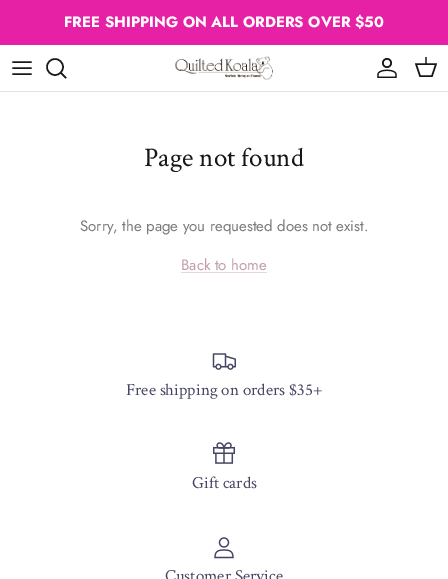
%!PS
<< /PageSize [448 579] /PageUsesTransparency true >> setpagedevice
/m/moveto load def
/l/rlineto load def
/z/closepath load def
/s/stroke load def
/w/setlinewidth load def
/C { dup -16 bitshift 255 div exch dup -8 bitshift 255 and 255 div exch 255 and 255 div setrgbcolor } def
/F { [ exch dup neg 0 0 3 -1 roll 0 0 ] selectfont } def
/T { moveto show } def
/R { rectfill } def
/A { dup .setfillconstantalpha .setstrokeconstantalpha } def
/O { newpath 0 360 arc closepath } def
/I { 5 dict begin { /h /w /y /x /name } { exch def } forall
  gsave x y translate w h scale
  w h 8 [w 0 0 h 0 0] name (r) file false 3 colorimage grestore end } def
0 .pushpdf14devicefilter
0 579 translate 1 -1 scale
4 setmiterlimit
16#FFFFFF C
0 0 448 579 R
16#E621A5 C
0 0 448 45 R
/Jost-Bold 15 F
16#FFFFFF C
(FREE SHIPPING ON ALL ORDERS OVER $50) 64 27 T
16#DFE3E8 C
0 91 448 1 R
16#171717 C
1.5 w
1 setlinecap
1 setlinejoin
13 68 m 18 0 l 13 62 m 18 0 l 13 74 m 18 0 l s
0 setlinecap
0 setlinejoin
55 67 8 O s
2 setlinecap
61 73 m 4.5 4.5 l s
(1.rgb) 175 56 98 25 I
(2.rgb) 377 58 20 20 I
0 setlinecap
416 64 m 20 0 l -4 12 l -12 0 l z s
0.75 A
425 57 2 8 R
/CrimsonText-Regular 27 F
1 A
(Page not found) 144 166 T
/Jost-Regular 15 F
16#787A7C C
(Sorry, the page you requested does not exist.) 80 231 T
16#C29CAB C
(Back to home) 181 270 T
16#E7D7DD C
181 272 86 1 R
(3.rgb) 212 353 24 17 I
/CrimsonText-Regular 17 F
16#454564 C
(Free shipping on orders $35+) 126 395 T
(4.rgb) 213 442 22 22 I
(Gift cards) 192 488 T
(5.rgb) 214 537 20 22 I
(Customer Service) 165 581 T
.poppdf14devicefilter showpage
